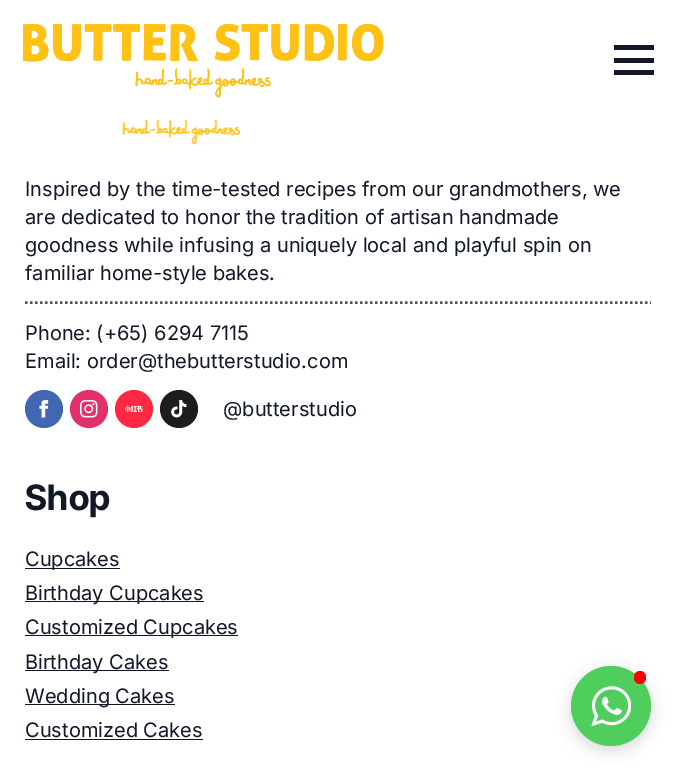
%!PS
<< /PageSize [676 771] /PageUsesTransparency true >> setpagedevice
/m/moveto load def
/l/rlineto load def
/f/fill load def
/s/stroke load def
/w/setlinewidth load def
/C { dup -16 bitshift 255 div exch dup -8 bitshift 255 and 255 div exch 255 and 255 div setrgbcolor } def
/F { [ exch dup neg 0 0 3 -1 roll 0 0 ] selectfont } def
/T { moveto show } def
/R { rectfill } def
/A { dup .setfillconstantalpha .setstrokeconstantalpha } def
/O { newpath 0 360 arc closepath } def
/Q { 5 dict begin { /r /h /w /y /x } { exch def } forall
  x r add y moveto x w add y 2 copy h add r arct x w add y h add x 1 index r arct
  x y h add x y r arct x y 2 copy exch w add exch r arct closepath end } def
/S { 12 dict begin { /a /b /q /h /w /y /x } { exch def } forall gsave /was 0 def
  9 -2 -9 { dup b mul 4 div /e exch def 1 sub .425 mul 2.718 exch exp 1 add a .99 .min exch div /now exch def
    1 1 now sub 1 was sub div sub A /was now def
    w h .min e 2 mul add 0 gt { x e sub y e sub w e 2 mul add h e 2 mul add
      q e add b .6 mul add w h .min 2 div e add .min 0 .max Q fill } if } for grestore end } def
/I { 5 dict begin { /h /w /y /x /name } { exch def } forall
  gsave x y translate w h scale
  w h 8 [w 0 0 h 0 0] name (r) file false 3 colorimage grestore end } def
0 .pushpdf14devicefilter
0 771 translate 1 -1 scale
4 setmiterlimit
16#FFFFFF C
0 0 676 771 R
(1.rgb) 23 24 361 74 I
16#111827 C
614 58 40 5 R
614 45 40 5 R
614 70 40 5 R
(2.rgb) 122 120 118 25 I
/Inter-Regular 20 F
(Inspired by the time-tested recipes from our grandmothers, we) 25 196 T
(are dedicated to honor the tradition of artisan handmade) 25 224 T
(goodness while infusing a uniquely local and playful spin on) 25 252 T
(familiar home-style bakes.) 25 280 T
16#4B5563 C
2.5 w
[2.5 2.5] 0 setdash
25 302.5 m 626 0 l s
16#111827 C
(Phone: \(+65\) 6294 7115) 25 340 T
(Email: order@thebutterstudio.com) 25 368 T
16#4267B2 C
44 409 19 O f
(3.rgb) 39 400 10 18 I
16#E1306C C
89 409 19 O f
(4.rgb) 80 400 18 18 I
16#FF2842 C
134 409 19 O f
(5.rgb) 125 405 18 7 I
16#1D1D1D C
179 409 19 O f
(6.rgb) 171 400 16 18 I
16#111827 C
(@butterstudio) 223 416 T
/InterTight-Bold 35 F
25 510 m .5 0 (Shop) ashow
25 568 95 1 R
/Inter-Regular 20 F
(Cupcakes) 25 566 T
25 601 179 1 R
(Birthday Cupcakes) 25 600 T
25 635 213 1 R
(Customized Cupcakes) 25 634 T
25 670 144 1 R
(Birthday Cakes) 25 669 T
25 704 150 1 R
(Wedding Cakes) 25 703 T
(Customized Cakes) 25 737 T
25 739 178 1 R
16#000000 C
571 670 80 80 40 7.5 .15 S
16#4FCE5D C
611 706 40 O f
16#FF0000 C
634 671 12 13 6 Q f
(7.rgb) 591 686 40 40 I
.poppdf14devicefilter showpage
